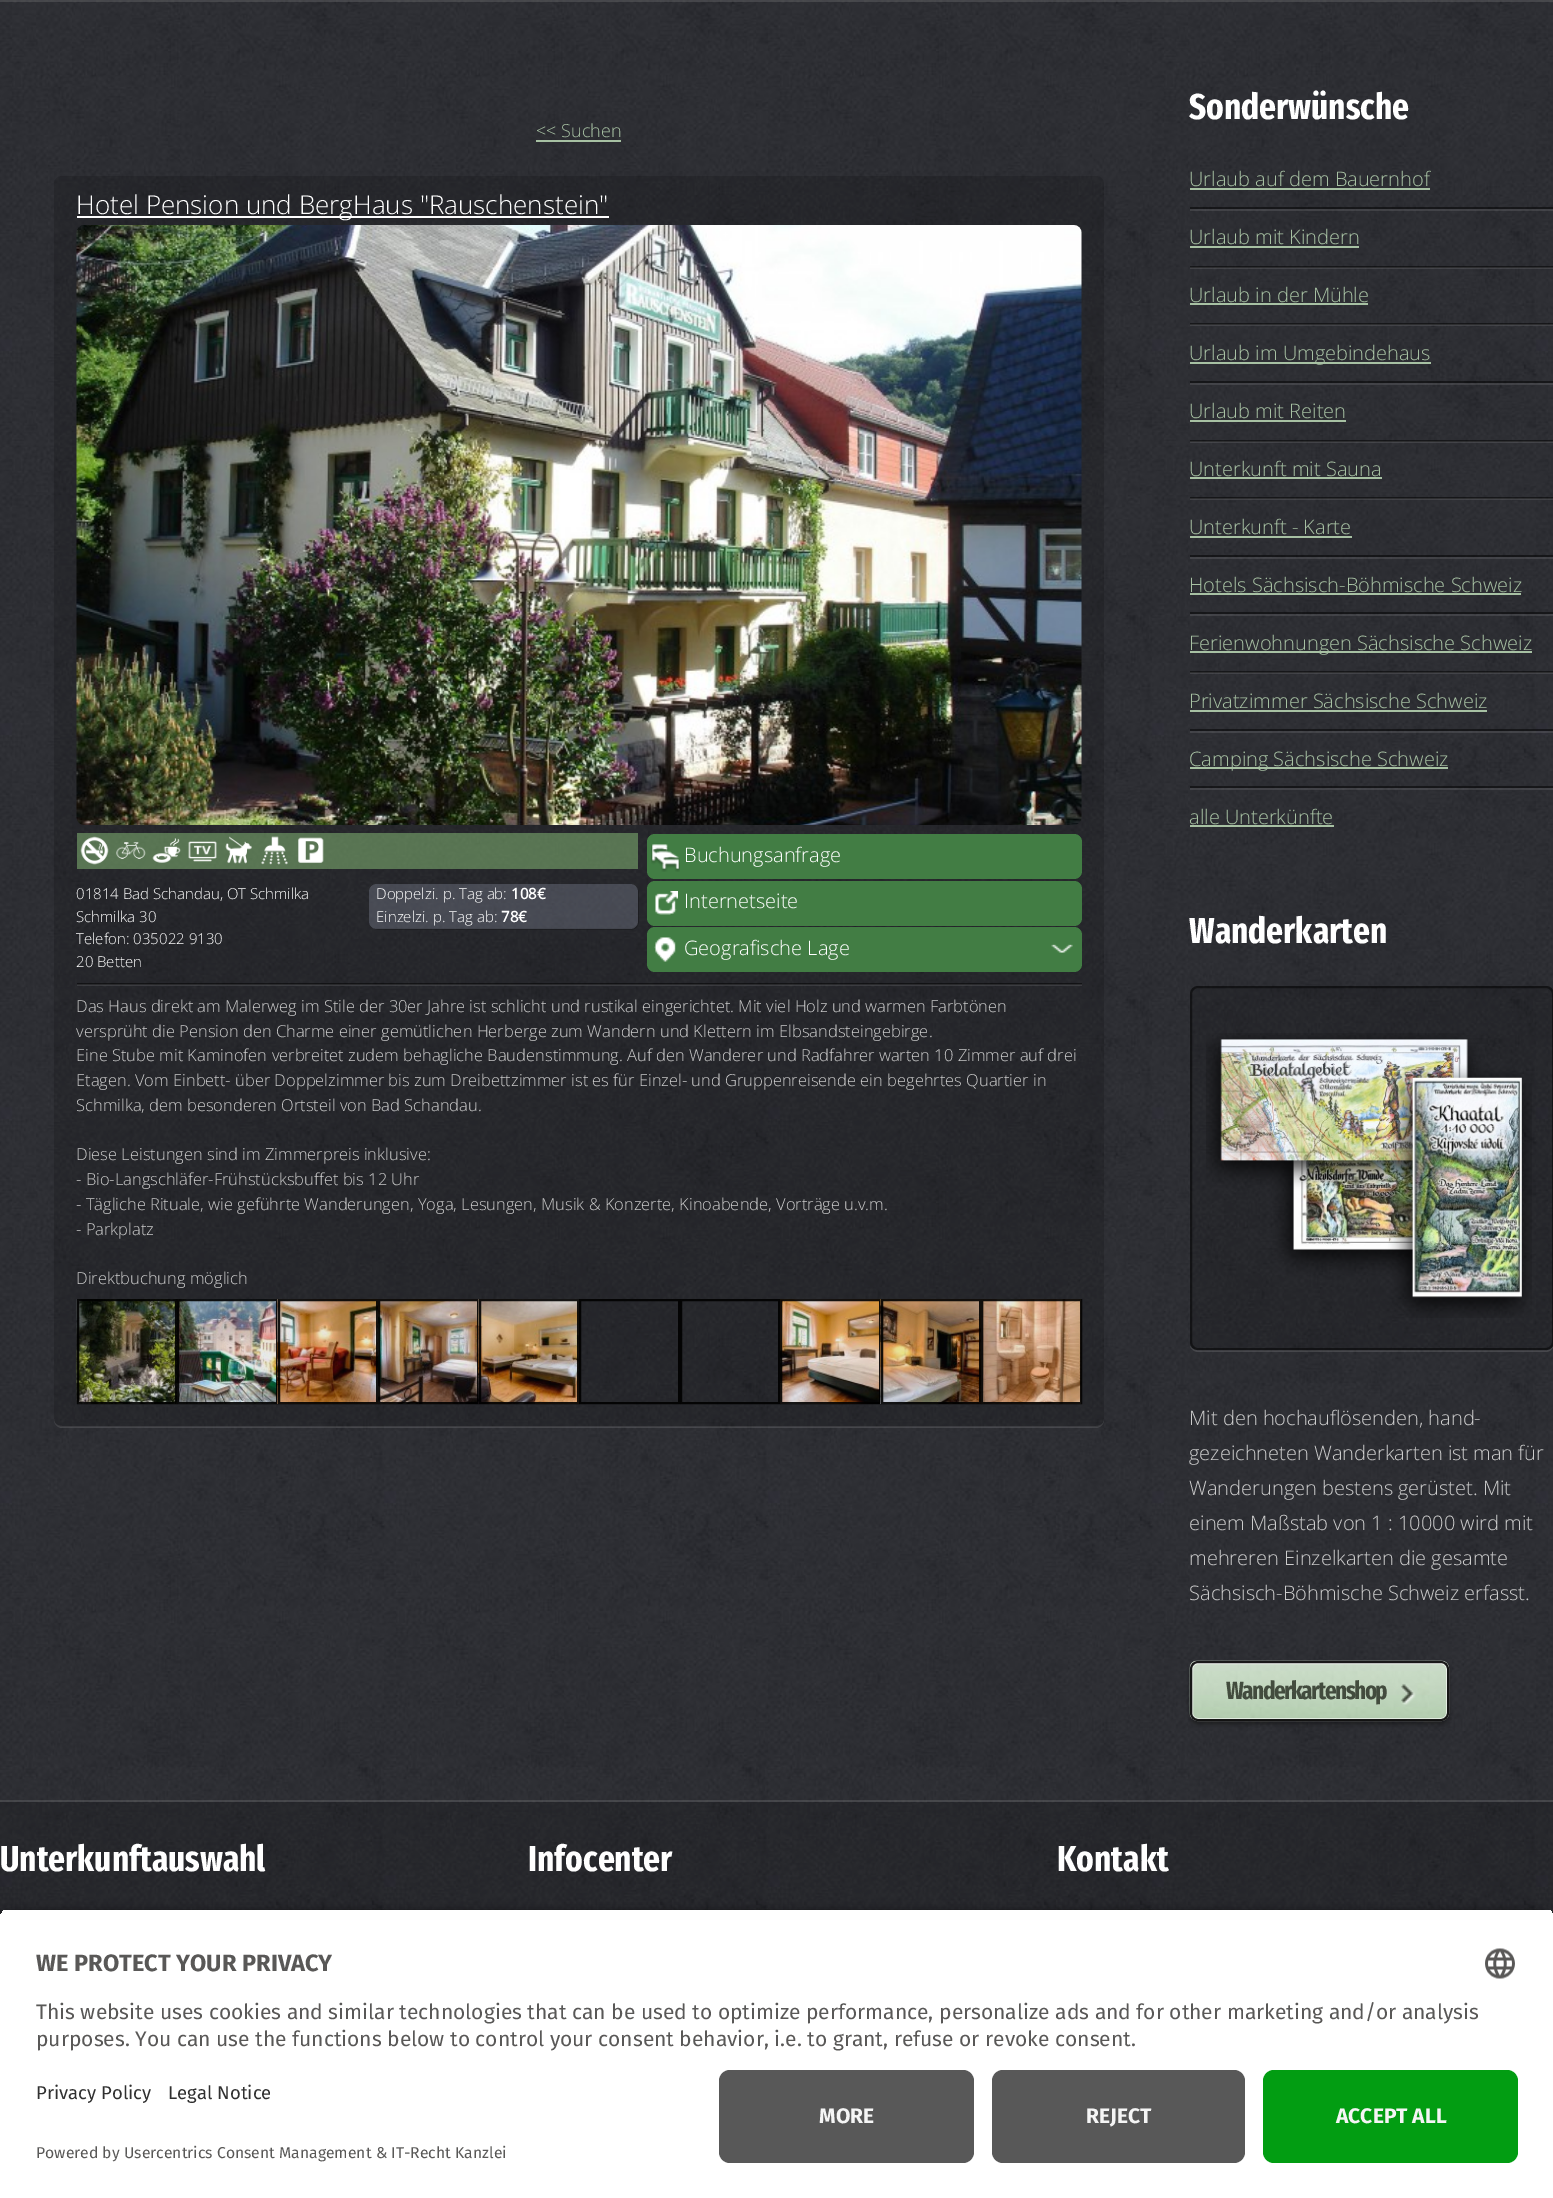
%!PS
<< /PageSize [1553 2198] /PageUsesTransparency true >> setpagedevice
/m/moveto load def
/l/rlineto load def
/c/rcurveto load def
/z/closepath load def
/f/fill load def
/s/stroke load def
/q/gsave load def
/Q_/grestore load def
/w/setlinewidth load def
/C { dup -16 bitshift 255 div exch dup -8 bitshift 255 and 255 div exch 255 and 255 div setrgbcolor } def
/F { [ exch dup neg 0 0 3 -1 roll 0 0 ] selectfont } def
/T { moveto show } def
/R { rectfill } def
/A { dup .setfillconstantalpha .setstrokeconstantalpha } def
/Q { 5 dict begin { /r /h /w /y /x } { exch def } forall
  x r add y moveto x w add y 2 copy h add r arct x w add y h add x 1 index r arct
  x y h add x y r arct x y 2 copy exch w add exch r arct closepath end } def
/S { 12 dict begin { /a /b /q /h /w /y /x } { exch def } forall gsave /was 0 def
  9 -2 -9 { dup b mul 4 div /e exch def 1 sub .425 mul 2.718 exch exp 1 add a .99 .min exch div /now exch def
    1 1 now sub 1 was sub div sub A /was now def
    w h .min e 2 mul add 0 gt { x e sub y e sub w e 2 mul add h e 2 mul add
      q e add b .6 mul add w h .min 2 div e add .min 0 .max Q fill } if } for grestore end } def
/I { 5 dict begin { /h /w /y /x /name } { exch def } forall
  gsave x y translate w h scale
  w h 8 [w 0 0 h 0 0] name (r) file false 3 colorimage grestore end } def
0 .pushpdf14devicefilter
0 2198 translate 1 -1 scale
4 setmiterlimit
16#FFFFFF C
0 0 1553 2198 R
(1.rgb) 0 0 1553 1919 I
0.15 A
16#000000 C
0 0 1553 2 R
16#FFFFFF C
0 0 1553 2 R
/OpenSans-Light 18 F
1 A
16#A7C1A3 C
(<< Suchen) 536 137 T
536 140 85 2 R
0.12 A
16#FFFFFF C
54 1419 m 0 1 l 0 4 4 8 8 8 c 1034 0 l 4 0 8 -4 8 -8 c 0 -1 l 0 4 -3 7 -8 7 c -1034 0 l -5 0 -8 -3 -8 -7 c z f
0.15 A
16#000000 C
54 176 1050 1251 8 Q f
1 A
16#FFFFFF C
77 216 532 2 R
/OpenSans-Light 26 F
(Hotel Pension und BergHaus "Rauschenstein") 76 214 T
(2.rgb) 76 225 1006 600 I
0.5 A
16#8BC27A C
77 833 561 36 R
1 A
(3.rgb) 80 836 29 29 I
(4.rgb) 116 842 30 17 I
(5.rgb) 152 838 29 25 I
(6.rgb) 188 841 29 21 I
(7.rgb) 225 836 27 28 I
(8.rgb) 261 836 27 29 I
(9.rgb) 298 837 26 26 I
/OpenSans-Light 15 F
16#FFFFFF C
(01814 Bad Schandau, OT Schmilka) 76 899 T
(Schmilka 30) 76 922 T
(Telefon: 035022 9130) 76 944 T
(20 Betten) 76 967 T
0.2 A
16#000000 C
374 928 m 1 1 3 2 5 2 c 252 0 l 4 0 8 -4 8 -8 c 0 -29 l 0 -2 -1 -4 -3 -6 c 1 1 2 3 2 4 c 0 30 l 0 4 -4 7 -8 7 c -254 0 l z f
0.32 A
16#9096A9 C
369 884 269 45 8 Q f
1 A
16#FFFFFF C
(Doppelzi. p. Tag ab:) 376 899 T
/OpenSans-Bold 15 F
(108€) 511 899 T
/OpenSans-Light 15 F
(Einzelzi. p. Tag ab:) 376 922 T
/OpenSans-Bold 15 F
(78€) 501 922 T
16#427D44 C
647 834 435 45 8 Q f
(10.rgb) 651 844 29 28 I
/OpenSans-Light 20 F
16#FFFFFF C
(Buchungsanfrage) 684 862 T
16#427D44 C
647 881 435 45 8 Q f
(11.rgb) 655 891 23 24 I
16#FFFFFF C
(Internetseite) 684 908 T
16#427D44 C
647 927 435 45 8 Q f
(12.rgb) 654 937 419 25 I
16#FFFFFF C
(Geografische Lage) 684 955 T
0.5 A
16#000000 C
77 983 1005 2 R
0.1 A
16#FFFFFF C
77 984 1005 2 R
/OpenSans-Light 16.5 F
1 A
16#CCCCCC C
(Das Haus direkt am Malerweg im Stile der 30er Jahre ist schlicht und rustikal eingerichtet. Mit viel Holz und warmen Farbtönen) 76 1012 T
(versprüht die Pension den Charme einer gemütlichen Herberge zum Wandern und Klettern im Elbsandsteingebirge.) 76 1037 T
(Eine Stube mit Kaminofen verbreitet zudem behagliche Baudenstimmung. Auf den Wanderer und Radfahrer warten 10 Zimmer auf drei) 76 1061 T
(Etagen. Vom Einbett- über Doppelzimmer bis zum Dreibettzimmer ist es für Einzel- und Gruppenreisende ein begehrtes Quartier in) 76 1086 T
(Schmilka, dem besonderen Ortsteil von Bad Schandau.) 76 1111 T
(Diese Leistungen sind im Zimmerpreis inklusive:) 76 1160 T
(- Bio-Langschläfer-Frühstücksbuffet bis 12 Uhr) 76 1185 T
(- Tägliche Rituale, wie geführte Wanderungen, Yoga, Lesungen, Musik & Konzerte, Kinoabende, Vorträge u.v.m.) 76 1210 T
(- Parkplatz) 76 1235 T
(Direktbuchung möglich) 76 1284 T
(13.rgb) 76 1299 101 105 I
0.9 A
16#000000 C
2 w
78 1300 98 103 rectstroke
1 A
(14.rgb) 177 1299 101 105 I
0.9 A
178 1300 99 103 rectstroke
1 A
(15.rgb) 277 1299 101 105 I
0.9 A
279 1300 98 103 rectstroke
1 A
(16.rgb) 378 1299 101 105 I
0.9 A
379 1300 99 103 rectstroke
1 A
(17.rgb) 478 1299 101 105 I
0.9 A
480 1300 98 103 rectstroke
580 1300 99 103 rectstroke
681 1300 98 103 rectstroke
1 A
(18.rgb) 780 1299 101 105 I
0.9 A
781 1300 99 103 rectstroke
1 A
(19.rgb) 880 1299 101 105 I
0.9 A
882 1300 98 103 rectstroke
1 A
(20.rgb) 981 1299 101 105 I
0.9 A
982 1300 99 103 rectstroke
/FiraSansExtraCondensed-Bold 36 F
1 A
16#FFFFFF C
(Sonderwünsche) 1189 119 T
0.5 A
16#000000 C
1190 207 363 2 R
/OpenSans-Light 20 F
1 A
16#A7C1A3 C
(Urlaub auf dem Bauernhof) 1189 186 T
1190 188 240 2 R
0.1 A
16#FFFFFF C
1190 209 363 2 R
0.5 A
16#000000 C
1190 266 363 2 R
1 A
16#A7C1A3 C
(Urlaub mit Kindern) 1189 244 T
1190 246 169 2 R
0.1 A
16#FFFFFF C
1190 267 363 2 R
0.5 A
16#000000 C
1190 323 363 2 R
1 A
16#A7C1A3 C
(Urlaub in der Mühle) 1189 302 T
1190 303 178 2 R
0.1 A
16#FFFFFF C
1190 324 363 2 R
0.5 A
16#000000 C
1190 381 363 2 R
1 A
16#A7C1A3 C
1190 362 241 2 R
(Urlaub im Umgebindehaus) 1189 360 T
0.1 A
16#FFFFFF C
1190 383 363 2 R
0.5 A
16#000000 C
1190 440 363 2 R
1 A
16#A7C1A3 C
(Urlaub mit Reiten) 1189 418 T
1190 420 156 2 R
0.1 A
16#FFFFFF C
1190 441 363 2 R
0.5 A
16#000000 C
1190 497 363 2 R
1 A
16#A7C1A3 C
(Unterkunft mit Sauna) 1189 476 T
1190 477 192 2 R
0.1 A
16#FFFFFF C
1190 498 363 2 R
0.5 A
16#000000 C
1190 555 363 2 R
1 A
16#A7C1A3 C
(Unterkunft - Karte) 1189 534 T
1190 536 162 2 R
0.1 A
16#FFFFFF C
1190 557 363 2 R
0.5 A
16#000000 C
1190 612 363 2 R
1 A
16#A7C1A3 C
(Hotels Sächsisch-Böhmische Schweiz) 1189 592 T
1190 593 331 2 R
0.1 A
16#FFFFFF C
1190 614 363 2 R
0.5 A
16#000000 C
1190 671 363 2 R
1 A
16#A7C1A3 C
1190 651 342 2 R
(Ferienwohnungen Sächsische Schweiz) 1189 650 T
0.1 A
16#FFFFFF C
1190 672 363 2 R
0.5 A
16#000000 C
1190 729 363 2 R
1 A
16#A7C1A3 C
(Privatzimmer Sächsische Schweiz) 1189 708 T
1190 710 297 2 R
0.1 A
16#FFFFFF C
1190 731 363 2 R
0.5 A
16#000000 C
1190 786 363 2 R
1 A
16#A7C1A3 C
1190 767 258 2 R
(Camping Sächsische Schweiz) 1189 766 T
0.1 A
16#FFFFFF C
1190 788 363 2 R
1 A
16#A7C1A3 C
(alle Unterkünfte) 1189 824 T
1190 825 144 2 R
/FiraSansExtraCondensed-Bold 36 F
16#FFFFFF C
(Wanderkarten) 1189 943 T
0.12 A
1190 1346 m 1 3 4 6 8 6 c 348 0 l 4 0 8 -4 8 -8 c 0 -2 l 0 5 -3 8 -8 8 c -349 0 l -3 0 -6 -2 -7 -4 c z f
0.15 A
16#000000 C
1190 986 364 364 8 Q f
0.5 A
1191 987 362 362 7 Q s
1 A
(21.rgb) 1206 1033 326 285 I
/OpenSans-Light 20 F
16#CCCCCC C
(Mit den hochauflösenden, hand-) 1189 1425 T
(gezeichneten Wanderkarten ist man für) 1189 1460 T
(Wanderungen bestens gerüstet. Mit) 1189 1495 T
(einem Maßstab von 1 : 10000 wird mit) 1189 1530 T
(mehreren Einzelkarten die gesamte) 1189 1565 T
(Sächsisch-Böhmische Schweiz erfasst.) 1189 1600 T
16#000000 C
1190 1664 259 60 8 2 .35 S
(22.rgb) 1189 1660 260 61 I
0.6 A
16#FFFFFF C
3 w
1191.5 1662.5 256 57 6.5 Q s
0.8 A
1197 1664 m 245 0 l 4 0 7 3 7 7 c 0 -2 l 0 -4 -4 -8 -8 -8 c -243 0 l -4 0 -8 4 -8 8 c 0 2 l 0 -4 3 -7 7 -7 c z f
0.9 A
16#000000 C
2 w
1191 1662 257 58 7 Q s
/FiraSansExtraCondensed-Bold 25 F
1 A
16#434C3E C
1226 1699 m -1.5 0 (Wanderkartenshop) ashow
(23.rgb) 1401 1684 15 21 I
0.15 A
16#000000 C
0 1800 1553 119 R
16#FFFFFF C
0 1800 1553 2 R
/FiraSansExtraCondensed-Bold 36 F
1 A
(Unterkunftauswahl) 0 1871 T
(Infocenter) 528 1871 T
(Kontakt) 1057 1871 T
16#000000 C
0 1913 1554 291 11 5 .8 S
q
11 1908 m 1532 0 l 6 0 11 5 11 11 c 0 139 l -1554 0 l 0 -139 l 0 -6 5 -11 11 -11 c z clip newpath
16#FFFFFF C
0 1910 1553 148 R
Q_
/FiraSans-Bold 23.6 F
16#595857 C
(WE PROTECT YOUR PRIVACY) 36 1971 T
(24.rgb) 1485 1948 30 31 I
/FiraSans-Regular 21 F
(This website uses cookies and similar technologies that can be used to optimize performance, personalize ads and for other marketing and/or analysis) 36 2019 T
(purposes. You can use the functions below to control your consent behavior, i.e. to grant, refuse or revoke consent.) 36 2046 T
16#FFFFFF C
0 2058 1553 140 R
/FiraSans-Regular 18.5 F
16#303030 C
(Privacy Policy) 36 2099 T
(Legal Notice) 168 2099 T
/FiraSans-Regular 15.75 F
16#595857 C
(Powered by Usercentrics Consent Management & IT-Recht Kanzlei) 36 2158 T
16#585858 C
719 2070 255 93 11 Q f
/FiraSans-Bold 21 F
16#F5F5F5 C
(MORE) 819 2123 T
16#585858 C
992 2070 253 93 11 Q f
16#F5F5F5 C
(REJECT) 1086 2123 T
16#029D12 C
1263 2070 255 93 11 Q f
16#F5F5F5 C
(ACCEPT ALL) 1336 2123 T
.poppdf14devicefilter showpage
